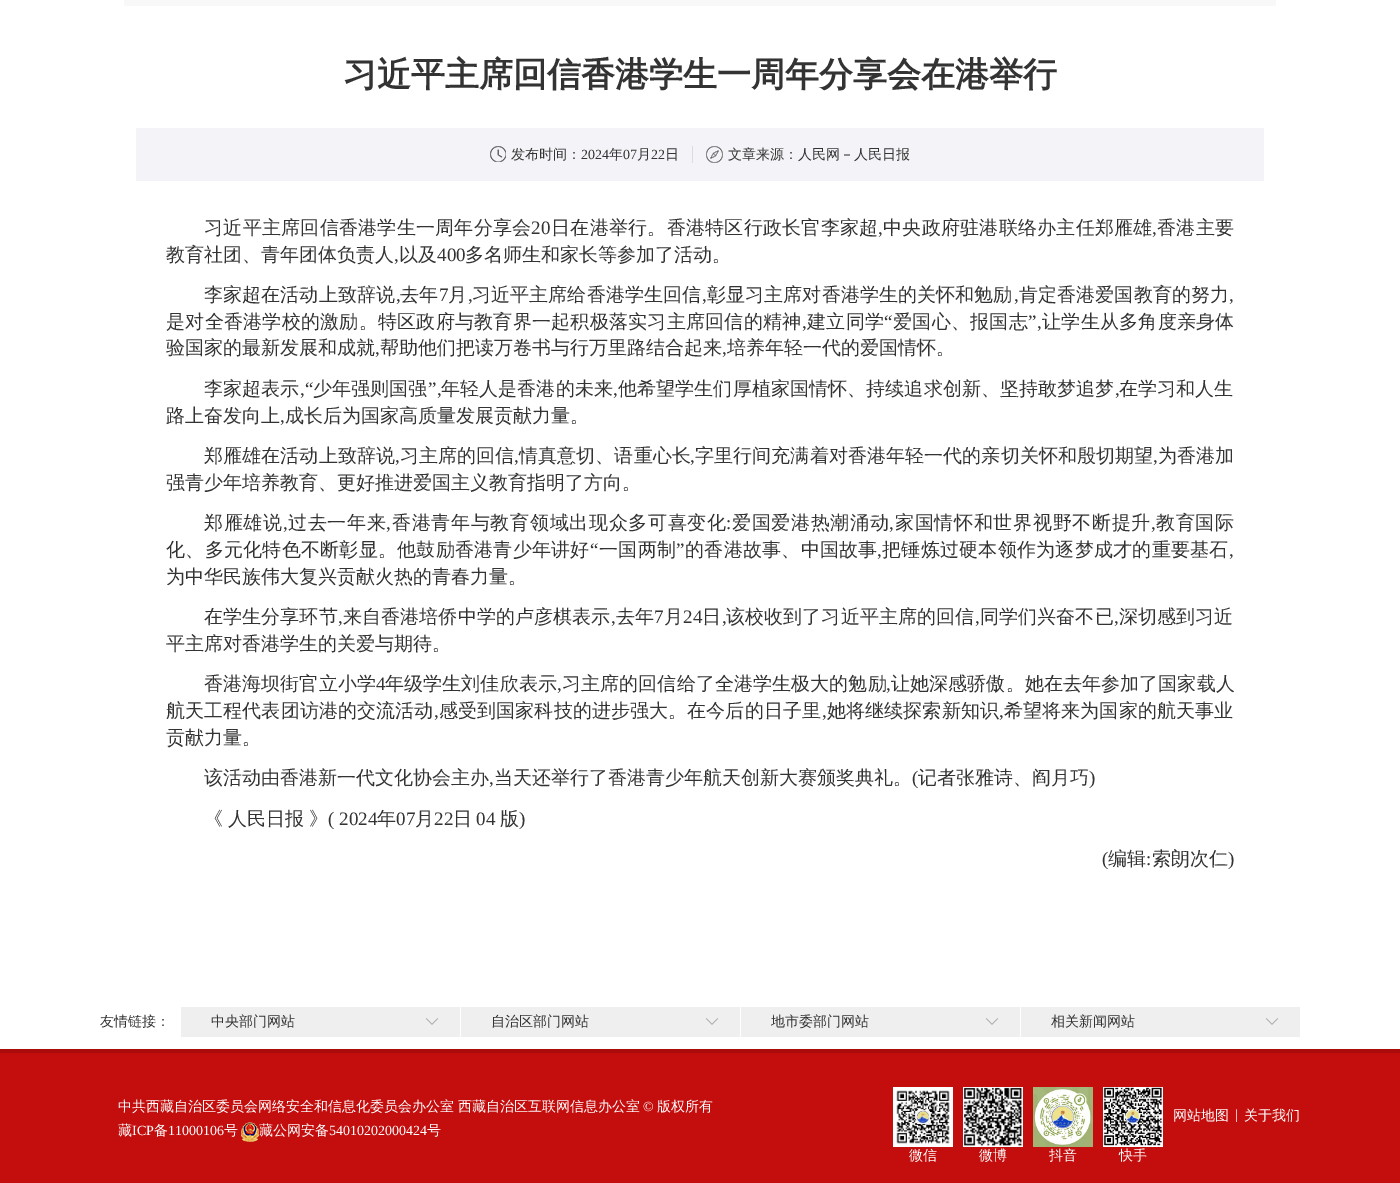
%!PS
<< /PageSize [1400 1183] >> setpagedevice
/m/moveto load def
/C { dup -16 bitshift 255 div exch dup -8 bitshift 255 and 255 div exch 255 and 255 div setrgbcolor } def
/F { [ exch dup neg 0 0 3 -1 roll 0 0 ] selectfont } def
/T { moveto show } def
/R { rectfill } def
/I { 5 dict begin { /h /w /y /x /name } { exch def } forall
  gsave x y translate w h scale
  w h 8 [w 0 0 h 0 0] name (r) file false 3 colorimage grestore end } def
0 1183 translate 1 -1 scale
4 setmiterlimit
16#FFFFFF C
0 0 1400 1183 R
16#F8F8F8 C
124 0 1152 6 R
/WenQuanYiZenHei-Bold 34 F
16#333333 C
(习近平主席回信香港学生一周年分享会在港举行) 343 86 T
16#F4F4F8 C
136 128 1128 53 R
(1.rgb) 490 146 16 16 I
/WenQuanYiZenHei-Medium 14 F
16#333333 C
(发布时间：) 511 159 T
/LiberationSerif-Regular 14 F
(2024) 581 159 T
/WenQuanYiZenHei-Medium 14 F
(年) 609 159 T
/LiberationSerif-Regular 14 F
(07) 623 159 T
/WenQuanYiZenHei-Medium 14 F
(月) 637 159 T
/LiberationSerif-Regular 14 F
(22) 651 159 T
/WenQuanYiZenHei-Medium 14 F
(日) 665 159 T
16#DCDCDF C
692 146 1 17 R
(2.rgb) 706 146 17 17 I
16#333333 C
(文章来源：人民网－人民日报) 728 159 T
/WenQuanYiZenHei-Medium 19 F
204 234 m .25 0 (习近平主席回信香港学生一周年分享会) ashow
/LiberationSerif-Regular 19 F
531 234 m .25 0 (20) ashow
/WenQuanYiZenHei-Medium 19 F
551 234 m .25 0 (日在港举行。香港特区行政长官李家超) ashow
/LiberationSerif-Regular 19 F
878 234 m .25 0 (,) ashow
/WenQuanYiZenHei-Medium 19 F
883 234 m .25 0 (中央政府驻港联络办主任郑雁雄) ashow
/LiberationSerif-Regular 19 F
1152 234 m .25 0 (,) ashow
/WenQuanYiZenHei-Medium 19 F
1157 234 m .25 0 (香港主要) ashow
(教育社团、青年团体负责人) 166 261 T
/LiberationSerif-Regular 19 F
(,) 394 261 T
/WenQuanYiZenHei-Medium 19 F
(以及) 399 261 T
/LiberationSerif-Regular 19 F
(400) 437 261 T
/WenQuanYiZenHei-Medium 19 F
(多名师生和家长等参加了活动。) 465 261 T
204 301 m .1 0 (李家超在活动上致辞说) ashow
400 301 m .1 0 (去年) ashow
/LiberationSerif-Regular 19 F
439 301 m .1 0 (7) ashow
/WenQuanYiZenHei-Medium 19 F
448 301 m .1 0 (月) ashow
472 301 m .1 0 (习近平主席给香港学生回信) ashow
707 301 m .1 0 (彰显习主席对香港学生的关怀和勉励) ashow
1019 301 m .1 0 (肯定香港爱国教育的努力) ashow
/LiberationSerif-Regular 19 F
396 301 m .1 0 (,) ashow
468 301 m .1 0 (,) ashow
702 301 m .1 0 (,) ashow
1014 301 m .1 0 (,) ashow
1229 301 m .1 0 (,) ashow
/WenQuanYiZenHei-Medium 19 F
166 328 m .25 0 (是对全香港学校的激励。特区政府与教育界一起积极落实习主席回信的精神) ashow
/LiberationSerif-Regular 19 F
802 328 m .25 0 (,) ashow
/WenQuanYiZenHei-Medium 19 F
807 328 m .25 0 (建立同学) ashow
/LiberationSerif-Regular 19 F
884 328 m .25 0 (“) ashow
/WenQuanYiZenHei-Medium 19 F
893 328 m .25 0 (爱国心、报国志) ashow
/LiberationSerif-Regular 19 F
1028 328 m .25 0 (”,) ashow
/WenQuanYiZenHei-Medium 19 F
1042 328 m .25 0 (让学生从多角度亲身体) ashow
(验国家的最新发展和成就) 166 354 T
/LiberationSerif-Regular 19 F
(,) 375 354 T
/WenQuanYiZenHei-Medium 19 F
(帮助他们把读万卷书与行万里路结合起来) 380 354 T
/LiberationSerif-Regular 19 F
(,) 722 354 T
/WenQuanYiZenHei-Medium 19 F
(培养年轻一代的爱国情怀。) 727 354 T
204 395 m .1 0 (李家超表示) ashow
/LiberationSerif-Regular 19 F
300 395 m .1 0 (,“) ashow
/WenQuanYiZenHei-Medium 19 F
313 395 m .1 0 (少年强则国强) ashow
/LiberationSerif-Regular 19 F
428 395 m .1 0 (”,) ashow
/WenQuanYiZenHei-Medium 19 F
441 395 m .1 0 (年轻人是香港的未来) ashow
/LiberationSerif-Regular 19 F
613 395 m .1 0 (,) ashow
/WenQuanYiZenHei-Medium 19 F
618 395 m .1 0 (他希望学生们厚植家国情怀、持续追求创新、坚持敢梦追梦) ashow
/LiberationSerif-Regular 19 F
1115 395 m .1 0 (,) ashow
/WenQuanYiZenHei-Medium 19 F
1119 395 m .1 0 (在学习和人生) ashow
(路上奋发向上) 166 422 T
/LiberationSerif-Regular 19 F
(,) 280 422 T
/WenQuanYiZenHei-Medium 19 F
(成长后为国家高质量发展贡献力量。) 285 422 T
204 462 m .1 0 (郑雁雄在活动上致辞说) ashow
/LiberationSerif-Regular 19 F
395 462 m .1 0 (,) ashow
/WenQuanYiZenHei-Medium 19 F
400 462 m .1 0 (习主席的回信) ashow
/LiberationSerif-Regular 19 F
514 462 m .1 0 (,) ashow
/WenQuanYiZenHei-Medium 19 F
519 462 m .1 0 (情真意切、语重心长) ashow
/LiberationSerif-Regular 19 F
690 462 m .1 0 (,) ashow
/WenQuanYiZenHei-Medium 19 F
695 462 m .1 0 (字里行间充满着对香港年轻一代的亲切关怀和殷切期望) ashow
/LiberationSerif-Regular 19 F
1153 462 m .1 0 (,) ashow
/WenQuanYiZenHei-Medium 19 F
1158 462 m .1 0 (为香港加) ashow
(强青少年培养教育、更好推进爱国主义教育指明了方向。) 166 489 T
204 529 m .7 0 (郑雁雄说) ashow
/LiberationSerif-Regular 19 F
283 529 m .7 0 (,) ashow
/WenQuanYiZenHei-Medium 19 F
288 529 m .7 0 (过去一年来) ashow
/LiberationSerif-Regular 19 F
386 529 m .7 0 (,) ashow
/WenQuanYiZenHei-Medium 19 F
392 529 m .7 0 (香港青年与教育领域出现众多可喜变化) ashow
/LiberationSerif-Regular 19 F
726 529 m .7 0 (:) ashow
/WenQuanYiZenHei-Medium 19 F
732 529 m .7 0 (爱国爱港热潮涌动) ashow
/LiberationSerif-Regular 19 F
889 529 m .7 0 (,) ashow
/WenQuanYiZenHei-Medium 19 F
895 529 m .7 0 (家国情怀和世界视野不断提升) ashow
/LiberationSerif-Regular 19 F
1151 529 m .7 0 (,) ashow
/WenQuanYiZenHei-Medium 19 F
1156 529 m .7 0 (教育国际) ashow
166 556 m .25 0 (化、多元化特色不断彰显。他鼓励香港青少年讲好) ashow
/LiberationSerif-Regular 19 F
590 556 m .25 0 (“) ashow
/WenQuanYiZenHei-Medium 19 F
599 556 m .25 0 (一国两制) ashow
/LiberationSerif-Regular 19 F
676 556 m .25 0 (”) ashow
/WenQuanYiZenHei-Medium 19 F
685 556 m .25 0 (的香港故事、中国故事) ashow
882 556 m .25 0 (把锤炼过硬本领作为逐梦成才的重要基石) ashow
/LiberationSerif-Regular 19 F
877 556 m .25 0 (,) ashow
1229 556 m .25 0 (,) ashow
/WenQuanYiZenHei-Medium 19 F
(为中华民族伟大复兴贡献火热的青春力量。) 166 583 T
204 623 m .1 0 (在学生分享环节) ashow
343 623 m .1 0 (来自香港培侨中学的卢彦棋表示) ashow
616 623 m .1 0 (去年) ashow
/LiberationSerif-Regular 19 F
654 623 m .1 0 (7) ashow
/WenQuanYiZenHei-Medium 19 F
664 623 m .1 0 (月) ashow
/LiberationSerif-Regular 19 F
683 623 m .1 0 (24) ashow
/WenQuanYiZenHei-Medium 19 F
702 623 m .1 0 (日) ashow
726 623 m .1 0 (该校收到了习近平主席的回信) ashow
980 623 m .1 0 (同学们兴奋不已) ashow
1119 623 m .1 0 (深切感到习近) ashow
/LiberationSerif-Regular 19 F
338 623 m .1 0 (,) ashow
611 623 m .1 0 (,) ashow
722 623 m .1 0 (,) ashow
975 623 m .1 0 (,) ashow
1114 623 m .1 0 (,) ashow
/WenQuanYiZenHei-Medium 19 F
(平主席对香港学生的关爱与期待。) 166 650 T
204 690 m .1 0 (香港海坝街官立小学) ashow
/LiberationSerif-Regular 19 F
376 690 m .1 0 (4) ashow
/WenQuanYiZenHei-Medium 19 F
385 690 m .1 0 (年级学生刘佳欣表示) ashow
562 690 m .1 0 (习主席的回信给了全港学生极大的勉励) ashow
891 690 m .1 0 (让她深感骄傲。她在去年参加了国家载人) ashow
/LiberationSerif-Regular 19 F
557 690 m .1 0 (,) ashow
886 690 m .1 0 (,) ashow
/WenQuanYiZenHei-Medium 19 F
166 717 m .1 0 (航天工程代表团访港的交流活动) ashow
/LiberationSerif-Regular 19 F
434 717 m .1 0 (,) ashow
/WenQuanYiZenHei-Medium 19 F
439 717 m .1 0 (感受到国家科技的进步强大。在今后的日子里) ashow
/LiberationSerif-Regular 19 F
822 717 m .1 0 (,) ashow
/WenQuanYiZenHei-Medium 19 F
827 717 m .1 0 (她将继续探索新知识) ashow
/LiberationSerif-Regular 19 F
999 717 m .1 0 (,) ashow
/WenQuanYiZenHei-Medium 19 F
1004 717 m .1 0 (希望将来为国家的航天事业) ashow
(贡献力量。) 166 744 T
(该活动由香港新一代文化协会主办) 204 784 T
/LiberationSerif-Regular 19 F
(,) 489 784 T
/WenQuanYiZenHei-Medium 19 F
(当天还举行了香港青少年航天创新大赛颁奖典礼。) 494 784 T
/LiberationSerif-Regular 19 F
(\() 912 784 T
/WenQuanYiZenHei-Medium 19 F
(记者张雅诗、阎月巧) 918 784 T
/LiberationSerif-Regular 19 F
(\)) 1089 784 T
/WenQuanYiZenHei-Medium 19 F
(《) 204 825 T
(人民日报) 228 825 T
(》) 309 825 T
/LiberationSerif-Regular 19 F
(\( 2024) 328 825 T
/WenQuanYiZenHei-Medium 19 F
(年) 377 825 T
/LiberationSerif-Regular 19 F
(07) 396 825 T
/WenQuanYiZenHei-Medium 19 F
(月) 415 825 T
/LiberationSerif-Regular 19 F
(22) 434 825 T
/WenQuanYiZenHei-Medium 19 F
(日) 453 825 T
/LiberationSerif-Regular 19 F
(04) 476 825 T
/WenQuanYiZenHei-Medium 19 F
(版) 500 825 T
/LiberationSerif-Regular 19 F
(\)) 519 825 T
(\() 1102 865 T
/WenQuanYiZenHei-Medium 19 F
(编辑) 1108 865 T
/LiberationSerif-Regular 19 F
(:) 1146 865 T
/WenQuanYiZenHei-Medium 19 F
(索朗次仁) 1152 865 T
/LiberationSerif-Regular 19 F
(\)) 1228 865 T
/WenQuanYiZenHei-Medium 14 F
(友情链接：) 100 1026 T
16#EFEFEF C
181 1007 279 30 R
(3.rgb) 425 1018 14 7 I
16#333333 C
(中央部门网站) 211 1026 T
16#EFEFEF C
461 1007 279 30 R
(3.rgb) 705 1018 14 7 I
16#333333 C
(自治区部门网站) 491 1026 T
16#EFEFEF C
741 1007 279 30 R
(3.rgb) 985 1018 14 7 I
16#333333 C
(地市委部门网站) 771 1026 T
16#EFEFEF C
1021 1007 279 30 R
(3.rgb) 1265 1018 14 7 I
16#333333 C
(相关新闻网站) 1051 1026 T
16#C40D0D C
0 1053 1400 130 R
16#AA0C0C C
0 1049 1400 4 R
16#FFFFFF C
(中共西藏自治区委员会网络安全和信息化委员会办公室) 118 1111 T
(西藏自治区互联网信息办公室) 458 1111 T
/LiberationSerif-Regular 14 F
(©) 643 1111 T
/WenQuanYiZenHei-Medium 14 F
(版权所有) 657 1111 T
(藏) 118 1135 T
/LiberationSerif-Regular 14 F
(ICP) 132 1135 T
/WenQuanYiZenHei-Medium 14 F
(备) 154 1135 T
/LiberationSerif-Regular 14 F
(11000106) 168 1135 T
/WenQuanYiZenHei-Medium 14 F
(号) 224 1135 T
(4.rgb) 241 1122 18 20 I
(藏公网安备) 259 1135 T
/LiberationSerif-Regular 14 F
(54010202000424) 329 1135 T
/WenQuanYiZenHei-Medium 14 F
(号) 427 1135 T
(网站地图) 1173 1120 T
/LiberationSerif-Regular 14 F
(|) 1235 1119 T
/WenQuanYiZenHei-Medium 14 F
(关于我们) 1244 1120 T
(5.rgb) 893 1087 60 60 I
(微信) 909 1160 T
(6.rgb) 963 1087 60 60 I
(微博) 979 1160 T
(7.rgb) 1033 1087 60 60 I
(抖音) 1049 1160 T
(8.rgb) 1103 1087 60 60 I
(快手) 1119 1160 T
showpage
